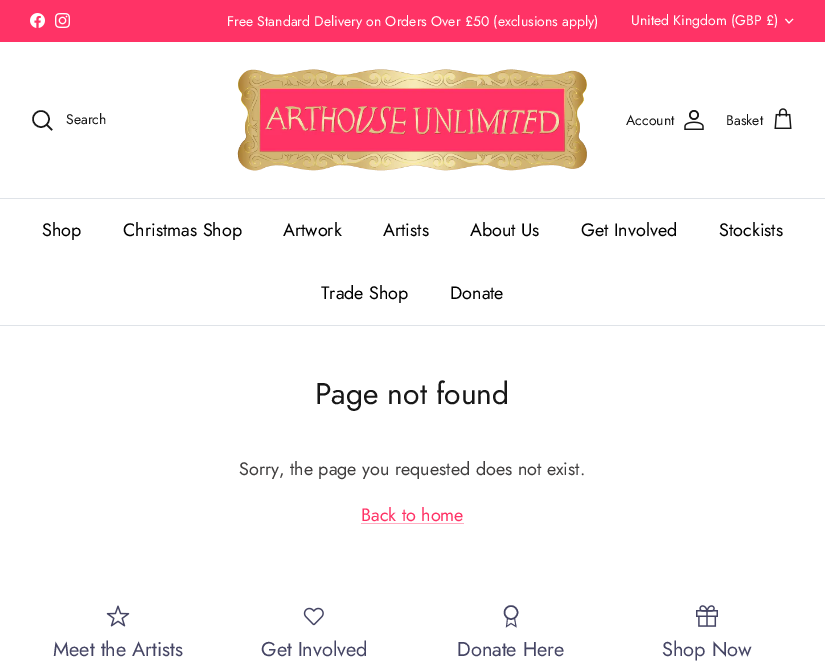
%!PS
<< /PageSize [825 664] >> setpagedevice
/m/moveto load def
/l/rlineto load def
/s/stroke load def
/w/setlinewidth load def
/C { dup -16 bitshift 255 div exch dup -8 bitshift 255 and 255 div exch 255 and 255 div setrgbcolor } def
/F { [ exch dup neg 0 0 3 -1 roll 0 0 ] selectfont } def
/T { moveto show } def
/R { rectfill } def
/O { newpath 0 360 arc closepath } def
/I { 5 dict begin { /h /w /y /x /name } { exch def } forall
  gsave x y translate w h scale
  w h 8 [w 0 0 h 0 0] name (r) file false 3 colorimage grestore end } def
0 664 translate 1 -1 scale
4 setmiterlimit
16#FFFFFF C
0 0 825 664 R
16#FF3366 C
0 0 825 42 R
(1.rgb) 30 13 15 15 I
(2.rgb) 55 13 15 15 I
/Jost-Regular 14 F
16#FFFFFF C
(Free Standard Delivery on Orders Over £50 \(exclusions apply\)) 227 26 T
(United Kingdom \(GBP £\)) 631 25 T
793 19 m -4 4 l -3.5 -4 l s
16#DFE3E8 C
0 198 825 1 R
16#171717 C
1.5 w
41 119 8 O s
(Search) 66 124 T
2 setlinecap
47 125 m 4.5 4.5 l s
(3.rgb) 237 69 350 102 I
(Account) 626 125 T
(4.rgb) 684 110 20 20 I
(Basket) 726 125 T
(5.rgb) 774 108 18 21 I
16#DFE3E8 C
0 325 825 1 R
/Jost-Regular 18 F
16#000000 C
(Shop) 42 236 T
(Christmas Shop) 123 236 T
(Artwork) 283 236 T
(Artists) 383 236 T
(About Us) 470 236 T
(Get Involved) 581 236 T
(Stockists) 719 236 T
(Trade Shop) 321 299 T
(Donate) 450 299 T
/Jost-Regular 30 F
16#171717 C
(Page not found) 315 404 T
/Jost-Regular 18 F
16#403E3E C
(Sorry, the page you requested does not exist.) 239 475 T
16#FF3366 C
(Back to home) 361 521 T
16#FFADC2 C
361 523 103 1 R
(6.rgb) 106 605 24 22 I
/Jost-Regular 20 F
16#454564 C
(Meet the Artists) 53 656 T
(7.rgb) 303 607 21 19 I
(Get Involved) 261 656 T
0 setlinecap
511 612.5 6.5 O s
.9 w
507.5 618 m -1 8.5 l 4.5 -3 l 5 3 l -1.5 -8.5 l s
(Donate Here) 457 656 T
(8.rgb) 696 605 22 22 I
(Shop Now) 662 656 T
showpage
